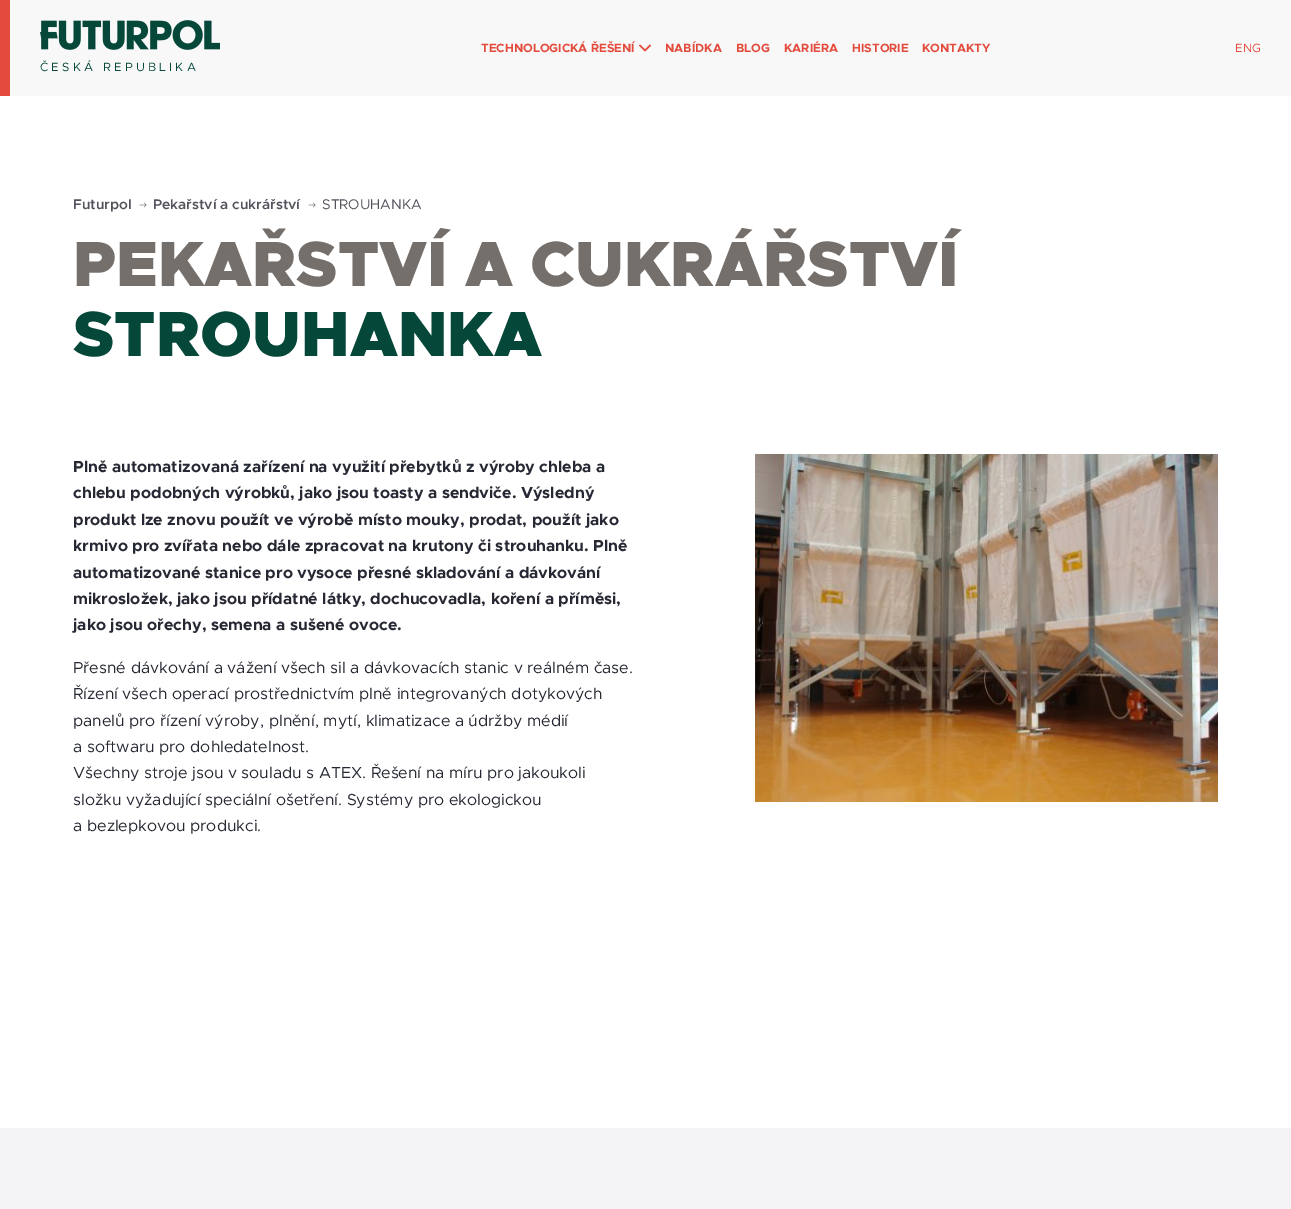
%!PS
<< /PageSize [1291 1209] >> setpagedevice
/m/moveto load def
/C { dup -16 bitshift 255 div exch dup -8 bitshift 255 and 255 div exch 255 and 255 div setrgbcolor } def
/F { [ exch dup neg 0 0 3 -1 roll 0 0 ] selectfont } def
/T { moveto show } def
/R { rectfill } def
/I { 5 dict begin { /h /w /y /x /name } { exch def } forall
  gsave x y translate w h scale
  w h 8 [w 0 0 h 0 0] name (r) file false 3 colorimage grestore end } def
0 1209 translate 1 -1 scale
4 setmiterlimit
16#FFFFFF C
0 0 1291 1209 R
16#F8F8F9 C
10 0 1281 96 R
16#E34C3D C
0 0 10 96 R
/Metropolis-Bold 12 F
(TECHNOLOGICKÁ ŘEŠENÍ) 481 52 T
(1.rgb) 639 44 12 8 I
(NABÍDKA) 665 52 T
(BLOG) 736 52 T
(KARIÉRA) 784 52 T
(HISTORIE) 852 52 T
(KONTAKTY) 922 52 T
/Metropolis-Regular 12 F
(ENG) 1235 52 T
(2.rgb) 40 20 180 30 I
16#05483A C
40 71 m 3.25 0 (ČESKÁ REPUBLIKA) ashow
/Metropolis-SemiBold 14 F
16#52535C C
(Futurpol) 73 209 T
(3.rgb) 139 202 8 6 I
(Pekařství a cukrářství) 153 209 T
(3.rgb) 308 202 8 6 I
/Metropolis-Regular 14 F
(STROUHANKA) 322 209 T
/Metropolis-Black 64 F
16#746F6B C
(PEKAŘSTVÍ A CUKRÁŘSTVÍ) 73 286 T
16#05483A C
(STROUHANKA) 73 356 T
/Metropolis-Bold 16 F
16#262833 C
(Plně automatizovaná zařízení na využití přebytků z výroby chleba a) 73 472 T
(chlebu podobných výrobků, jako jsou toasty a sendviče. Výsledný) 73 498 T
(produkt lze znovu použít ve výrobě místo mouky, prodat, použít jako) 73 525 T
(krmivo pro zvířata nebo dále zpracovat na krutony či strouhanku. Plně) 73 551 T
(automatizované stanice pro vysoce přesné skladování a dávkování) 73 578 T
(mikrosložek, jako jsou přídatné látky, dochucovadla, koření a příměsi,) 73 604 T
(jako jsou ořechy, semena a sušené ovoce.) 73 630 T
/Metropolis-Regular 16 F
(Přesné dávkování a vážení všech sil a dávkovacích stanic v reálném čase.) 73 673 T
(Řízení všech operací prostřednictvím plně integrovaných dotykových) 73 699 T
(panelů pro řízení výroby, plnění, mytí, klimatizace a údržby médií) 73 726 T
(a softwaru pro dohledatelnost.) 73 752 T
(Všechny stroje jsou v souladu s ATEX. Řešení na míru pro jakoukoli) 73 778 T
(složku vyžadující speciální ošetření. Systémy pro ekologickou) 73 805 T
(a bezlepkovou produkci.) 73 831 T
(4.rgb) 755 454 463 348 I
16#F4F4F6 C
0 1128 1291 81 R
showpage
